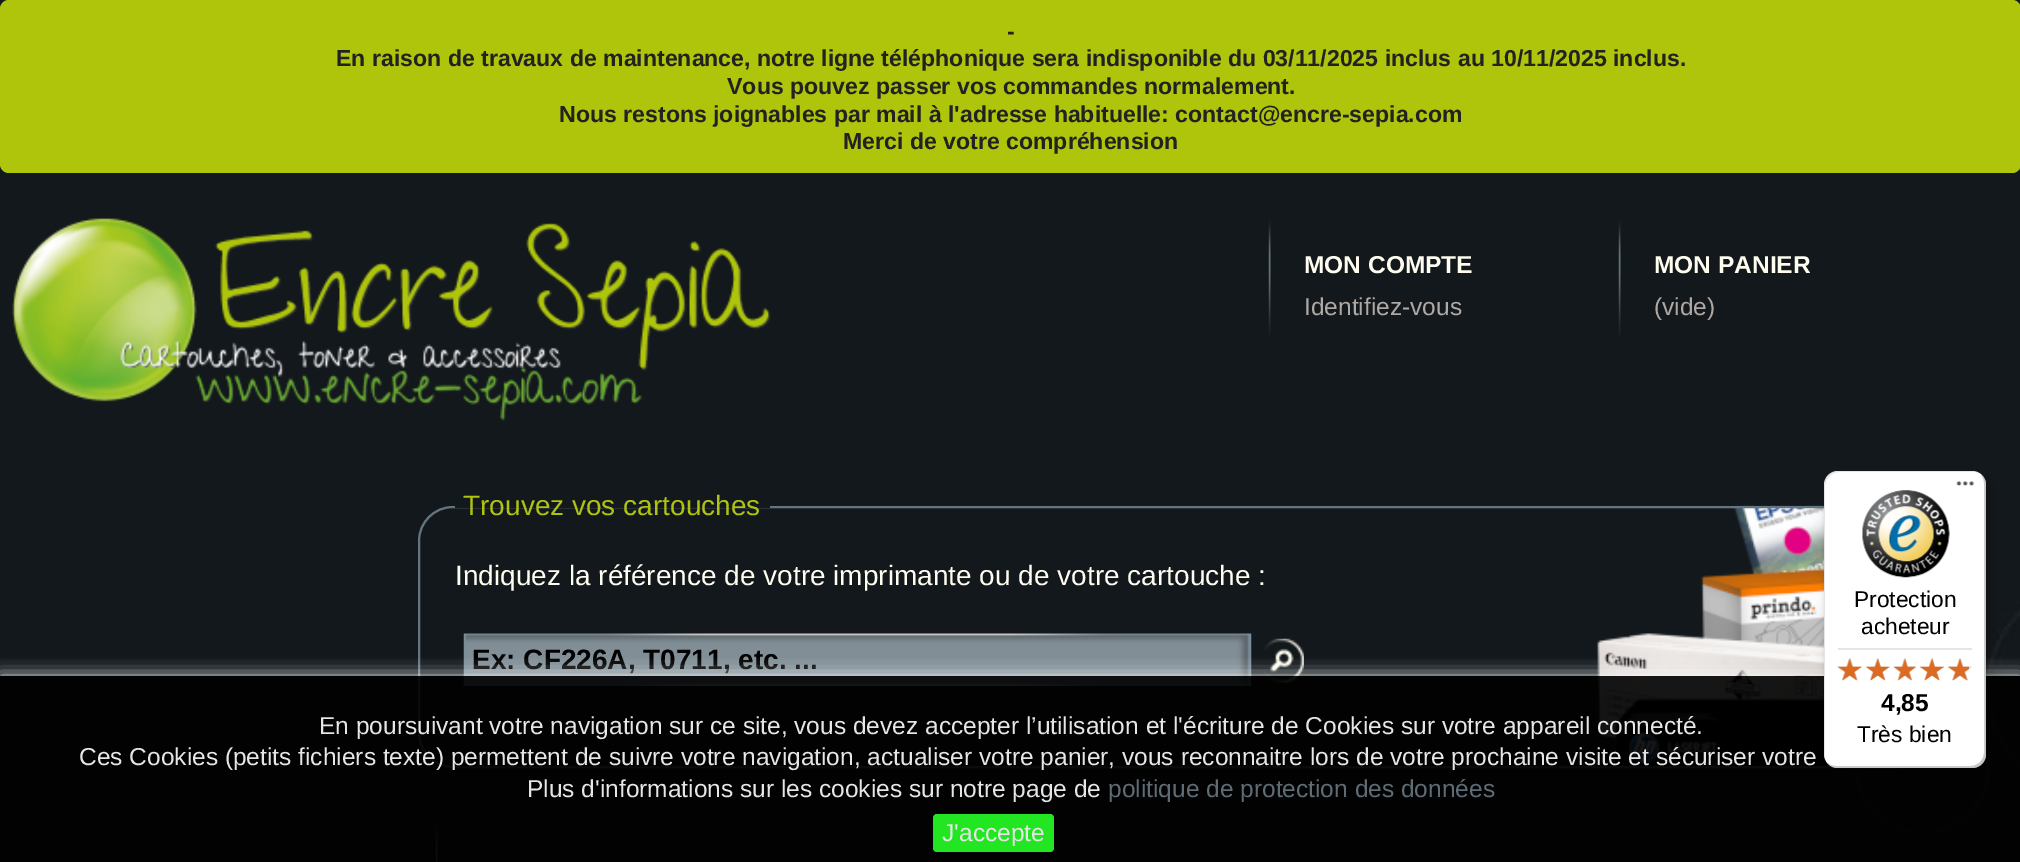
%!PS
<< /PageSize [2020 862] /PageUsesTransparency true >> setpagedevice
/m/moveto load def
/l/rlineto load def
/c/rcurveto load def
/z/closepath load def
/f/fill load def
/s/stroke load def
/q/gsave load def
/Q_/grestore load def
/w/setlinewidth load def
/C { dup -16 bitshift 255 div exch dup -8 bitshift 255 and 255 div exch 255 and 255 div setrgbcolor } def
/F { [ exch dup neg 0 0 3 -1 roll 0 0 ] selectfont } def
/T { moveto show } def
/R { rectfill } def
/A { dup .setfillconstantalpha .setstrokeconstantalpha } def
/Q { 5 dict begin { /r /h /w /y /x } { exch def } forall
  x r add y moveto x w add y 2 copy h add r arct x w add y h add x 1 index r arct
  x y h add x y r arct x y 2 copy exch w add exch r arct closepath end } def
/S { 12 dict begin { /a /b /q /h /w /y /x } { exch def } forall gsave /was 0 def
  9 -2 -9 { dup b mul 4 div /e exch def 1 sub .425 mul 2.718 exch exp 1 add a .99 .min exch div /now exch def
    1 1 now sub 1 was sub div sub A /was now def
    w h .min e 2 mul add 0 gt { x e sub y e sub w e 2 mul add h e 2 mul add
      q e add b .6 mul add w h .min 2 div e add .min 0 .max Q fill } if } for grestore end } def
/I { 5 dict begin { /h /w /y /x /name } { exch def } forall
  gsave x y translate w h scale
  w h 8 [w 0 0 h 0 0] name (r) file false 3 colorimage grestore end } def
0 .pushpdf14devicefilter
0 862 translate 1 -1 scale
4 setmiterlimit
16#13181C C
0 0 2020 862 R
(1.rgb) 1781 546 239 288 I
16#AEC50B C
0 0 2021 173 9 Q f
/LiberationSans-Bold 23.1 F
16#222222 C
(-) 1007 39 T
(En raison de travaux de maintenance, notre ligne téléphonique sera indisponible du 03/11/2025 inclus au 10/11/2025 inclus.) 336 66 T
(Vous pouvez passer vos commandes normalement.) 727 94 T
(Nous restons joignables par mail à l'adresse habituelle: contact@encre-sepia.com) 559 122 T
(Merci de votre compréhension) 843 149 T
(2.rgb) 12 218 759 203 I
(3.rgb) 1268 221 3 117 I
/LiberationSans-Bold 24.5 F
16#FFFDF0 C
(MON COMPTE) 1304 273 T
/LiberationSans-Regular 24.5 F
16#AEA9A4 C
(Identifiez-vous) 1304 315 T
(3.rgb) 1618 221 3 117 I
/LiberationSans-Bold 24.5 F
16#FFFDF0 C
(MON PANIER) 1654 273 T
/LiberationSans-Regular 24.5 F
16#AEA9A4 C
(\(vide\)) 1654 315 T
(4.rgb) 1597 505 303 264 I
16#65757F C
2 w
419 507 1514 260 34 Q s
16#14191E C
455 506 315 2 R
/LiberationSans-Regular 28 F
16#AEC411 C
(Trouvez vos cartouches) 463 515 T
16#FFFDF0 C
(Indiquez la référence de votre imprimante ou de votre cartouche :) 455 585 T
(5.rgb) 463 633 789 53 I
/LiberationSans-Bold 28 F
16#000000 C
(Ex: CF226A, T0711, etc. ...) 472 669 T
(6.rgb) 1264 638 40 45 I
(7.rgb) 435 824 3 38 I
q
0 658 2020 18 rectclip
16#FFFFFF C
0 676 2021 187 0 9 .9 S
Q_
0.9 A
0 676 2020 186 R
1 A
1829 476 163 298 14 7 .15 S
1825 473 163 297 14 2 .15 S
16#FFFFFF C
1824 471 162 297 14 Q f
0.1 A
16#000000 C
1839 472 m 135 0 l 2 0 4 0 5 1 c -2 -1 -4 -2 -7 -2 c -134 0 l -8 0 -14 6 -14 14 c 0 269 l 0 3 1 5 2 7 c -1 -1 -1 -3 -1 -5 c 0 -270 l 0 -7 7 -14 14 -14 c z f
0.2 A
1828 763 m 2 3 6 5 10 5 c 134 0 l 8 0 14 -6 14 -14 c 0 -269 l 0 -4 -2 -8 -5 -10 c 2 2 3 5 3 8 c 0 269 l 0 8 -6 14 -14 14 c -134 0 l -3 0 -6 -1 -8 -3 c z f
16#323232 C
1830 766 m 2 1 5 2 8 2 c 134 0 l 8 0 14 -6 14 -14 c 0 -269 l 0 -4 -1 -7 -4 -9 c 2 2 3 5 3 8 c 0 269 l 0 8 -6 14 -14 14 c -135 0 l -2 0 -4 0 -6 -1 c z f
0.3 A
16#FFFFFF C
1829 764 m 2 3 5 4 9 4 c 134 0 l 8 0 14 -6 14 -14 c 0 -269 l 0 -4 -1 -7 -4 -9 c 2 2 3 5 3 8 c 0 269 l 0 8 -6 14 -14 14 c -134 0 l -3 0 -6 -1 -8 -3 c z f
1 A
(8.rgb) 1956 481 18 5 I
(9.rgb) 1862 490 88 88 I
/LiberationSans-Regular 22.75 F
16#000000 C
(Protection) 1854 607 T
(acheteur) 1861 634 T
16#E5E5E5 C
1838 648 134 2 R
(10.rgb) 1837 658 25 23 I
(11.rgb) 1866 658 24 23 I
(12.rgb) 1893 658 23 23 I
(13.rgb) 1920 658 24 23 I
(14.rgb) 1948 658 24 23 I
(15.rgb) 1837 658 25 23 I
(16.rgb) 1865 658 25 23 I
(17.rgb) 1893 658 24 23 I
(18.rgb) 1919 658 25 23 I
(19.rgb) 1947 658 22 23 I
/LiberationSans-Bold 24.5 F
16#000000 C
(4,85) 1881 711 T
/LiberationSans-Regular 22.75 F
(Très bien) 1857 742 T
/LiberationSans-Regular 24.5 F
16#E6E6E6 C
(En poursuivant votre navigation sur ce site, vous devez accepter l’utilisation et l'écriture de Cookies sur votre appareil connecté.) 319 734 T
(Ces Cookies \(petits fichiers texte\) permettent de suivre votre navigation, actualiser votre panier, vous reconnaitre lors de votre prochaine visite et sécuriser votre) 79 765 T
(Plus d'informations sur les cookies sur notre page de) 527 797 T
16#5D6C75 C
(politique de protection des données) 1108 797 T
0.9 A
16#24FF24 C
933 814 121 38 4 Q f
1 A
16#E6E6E6 C
(J'accepte) 942 841 T
.poppdf14devicefilter showpage
